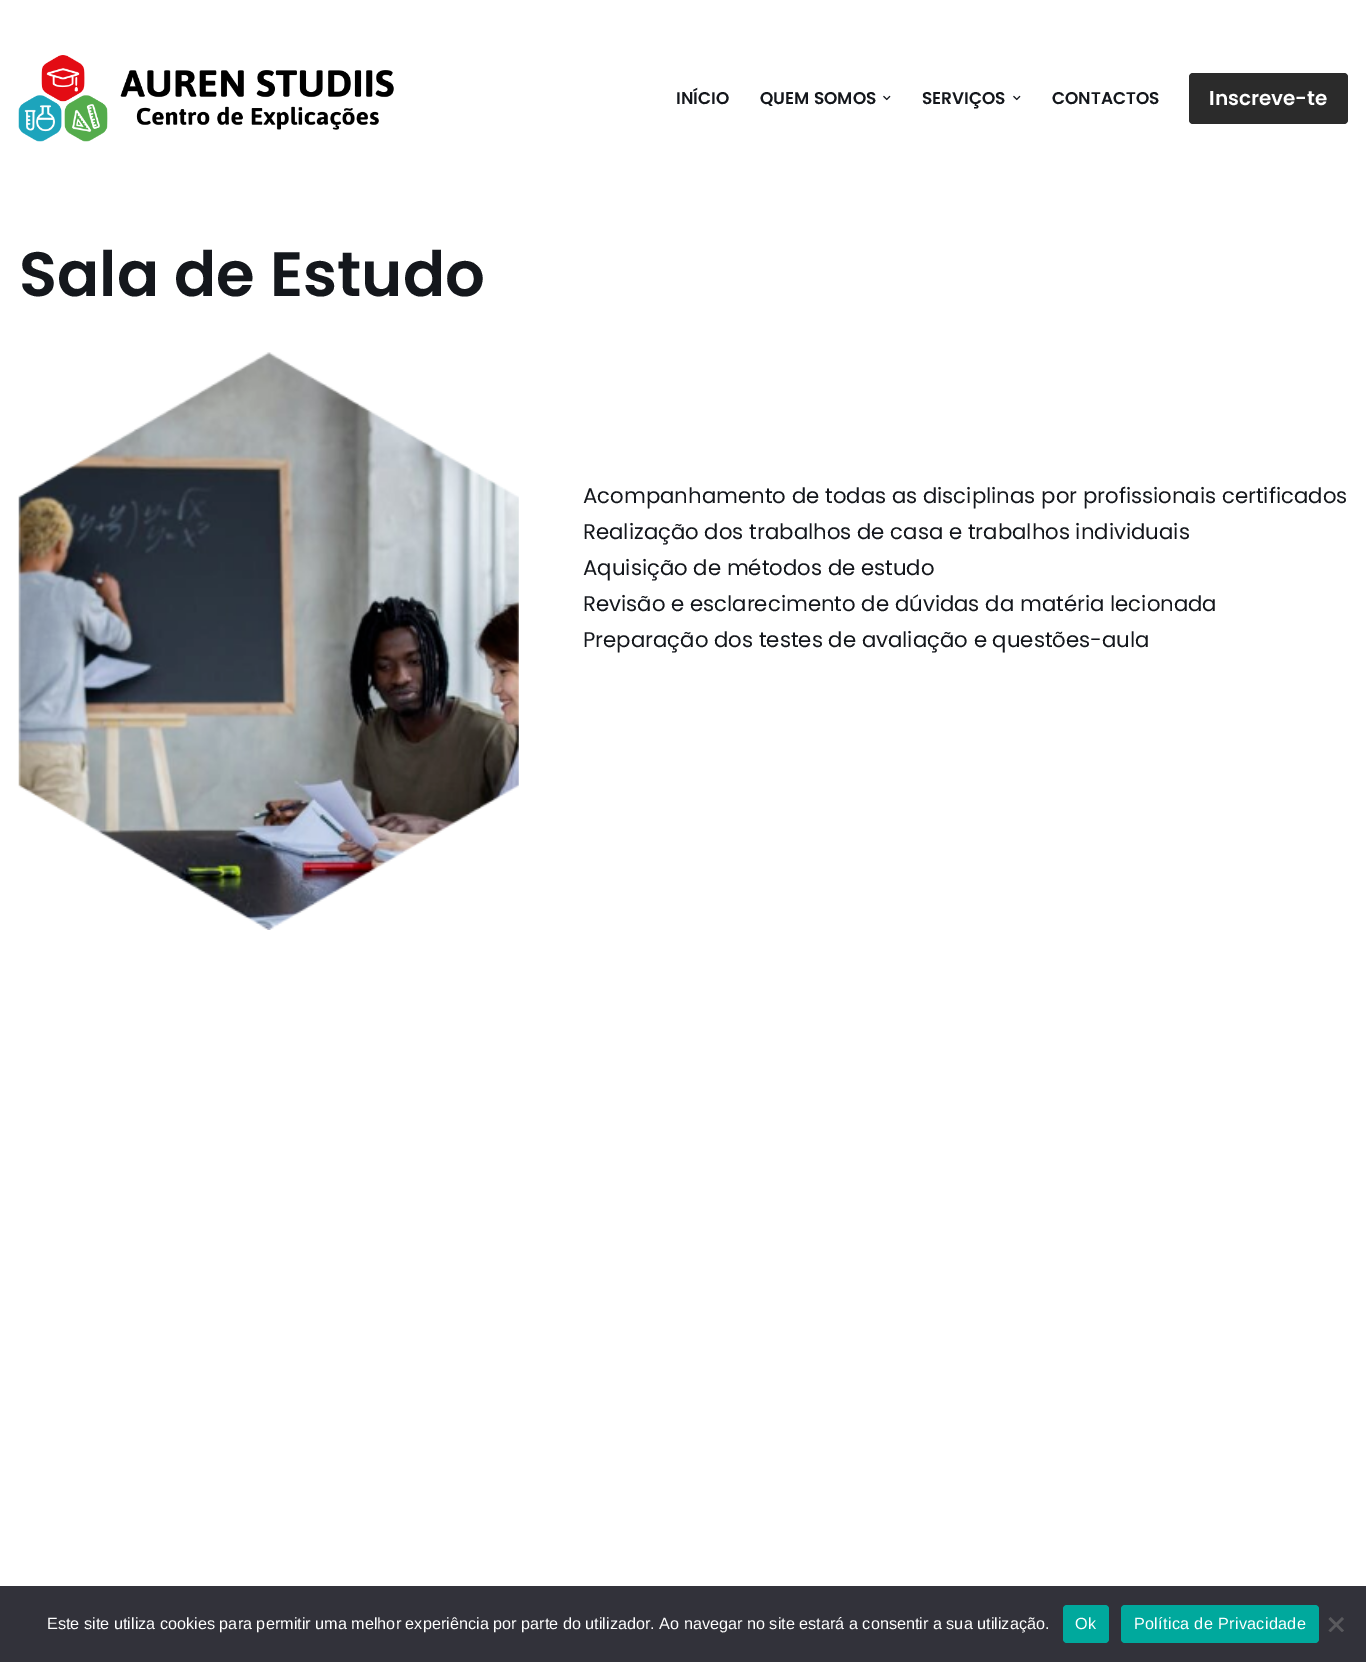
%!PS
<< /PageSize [1366 1662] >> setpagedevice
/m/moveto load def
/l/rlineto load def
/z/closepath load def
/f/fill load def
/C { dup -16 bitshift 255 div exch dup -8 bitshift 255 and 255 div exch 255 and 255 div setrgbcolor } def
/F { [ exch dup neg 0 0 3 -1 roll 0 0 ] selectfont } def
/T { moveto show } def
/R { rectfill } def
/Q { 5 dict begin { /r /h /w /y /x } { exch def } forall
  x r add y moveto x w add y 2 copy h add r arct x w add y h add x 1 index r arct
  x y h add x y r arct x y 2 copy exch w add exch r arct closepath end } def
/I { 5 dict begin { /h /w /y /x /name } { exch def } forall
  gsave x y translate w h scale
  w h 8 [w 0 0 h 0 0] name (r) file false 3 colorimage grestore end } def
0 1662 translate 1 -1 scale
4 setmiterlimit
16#FFFFFF C
0 0 1366 1662 R
(1.rgb) 18 55 376 87 I
/Poppins-SemiBold 17 F
16#14171C C
(INÍCIO) 676 104 T
(QUEM SOMOS) 760 104 T
(2.rgb) 883 95 8 6 I
(SERVIÇOS) 922 104 T
(2.rgb) 1013 95 8 6 I
(CONTACTOS) 1052 104 T
16#2B2B2B C
1189 73 159 51 4 Q f
/Poppins-SemiBold 20 F
16#FFFFFF C
(Inscreve-te) 1209 105 T
/Poppins-SemiBold 62.5 F
16#14171C C
(Sala de Estudo) 19 296 T
(3.rgb) 18 352 501 578 I
/Poppins-Regular 21.25 F
(Acompanhamento de todas as disciplinas por profissionais certificados) 583 503 T
(Realização dos trabalhos de casa e trabalhos individuais) 583 539 T
(Aquisição de métodos de estudo) 583 575 T
(Revisão e esclarecimento de dúvidas da matéria lecionada) 583 611 T
(Preparação dos testes de avaliação e questões-aula) 583 647 T
16#32323A C
0 1586 1366 76 R
/LiberationSans-Regular 16.25 F
16#FFFFFF C
(Este site utiliza cookies para permitir uma melhor experiência por parte do utilizador. Ao navegar no site estará a consentir a sua utilização.) 47 1629 T
16#00A99D C
1063 1605 46 38 4 Q f
16#FFFFFF C
1075 1629 m .3 0 (Ok) ashow
16#00A99D C
1121 1605 198 38 4 Q f
16#FFFFFF C
1134 1629 m .3 0 (Política de Privacidade) ashow
16#59595D C
1342 1617 m 2 2 l -13.5 13 l -2 -1.5 l z f
1328.5 1619 m 2 -2 l 13.5 13.5 l -2 1.5 l z f
showpage
